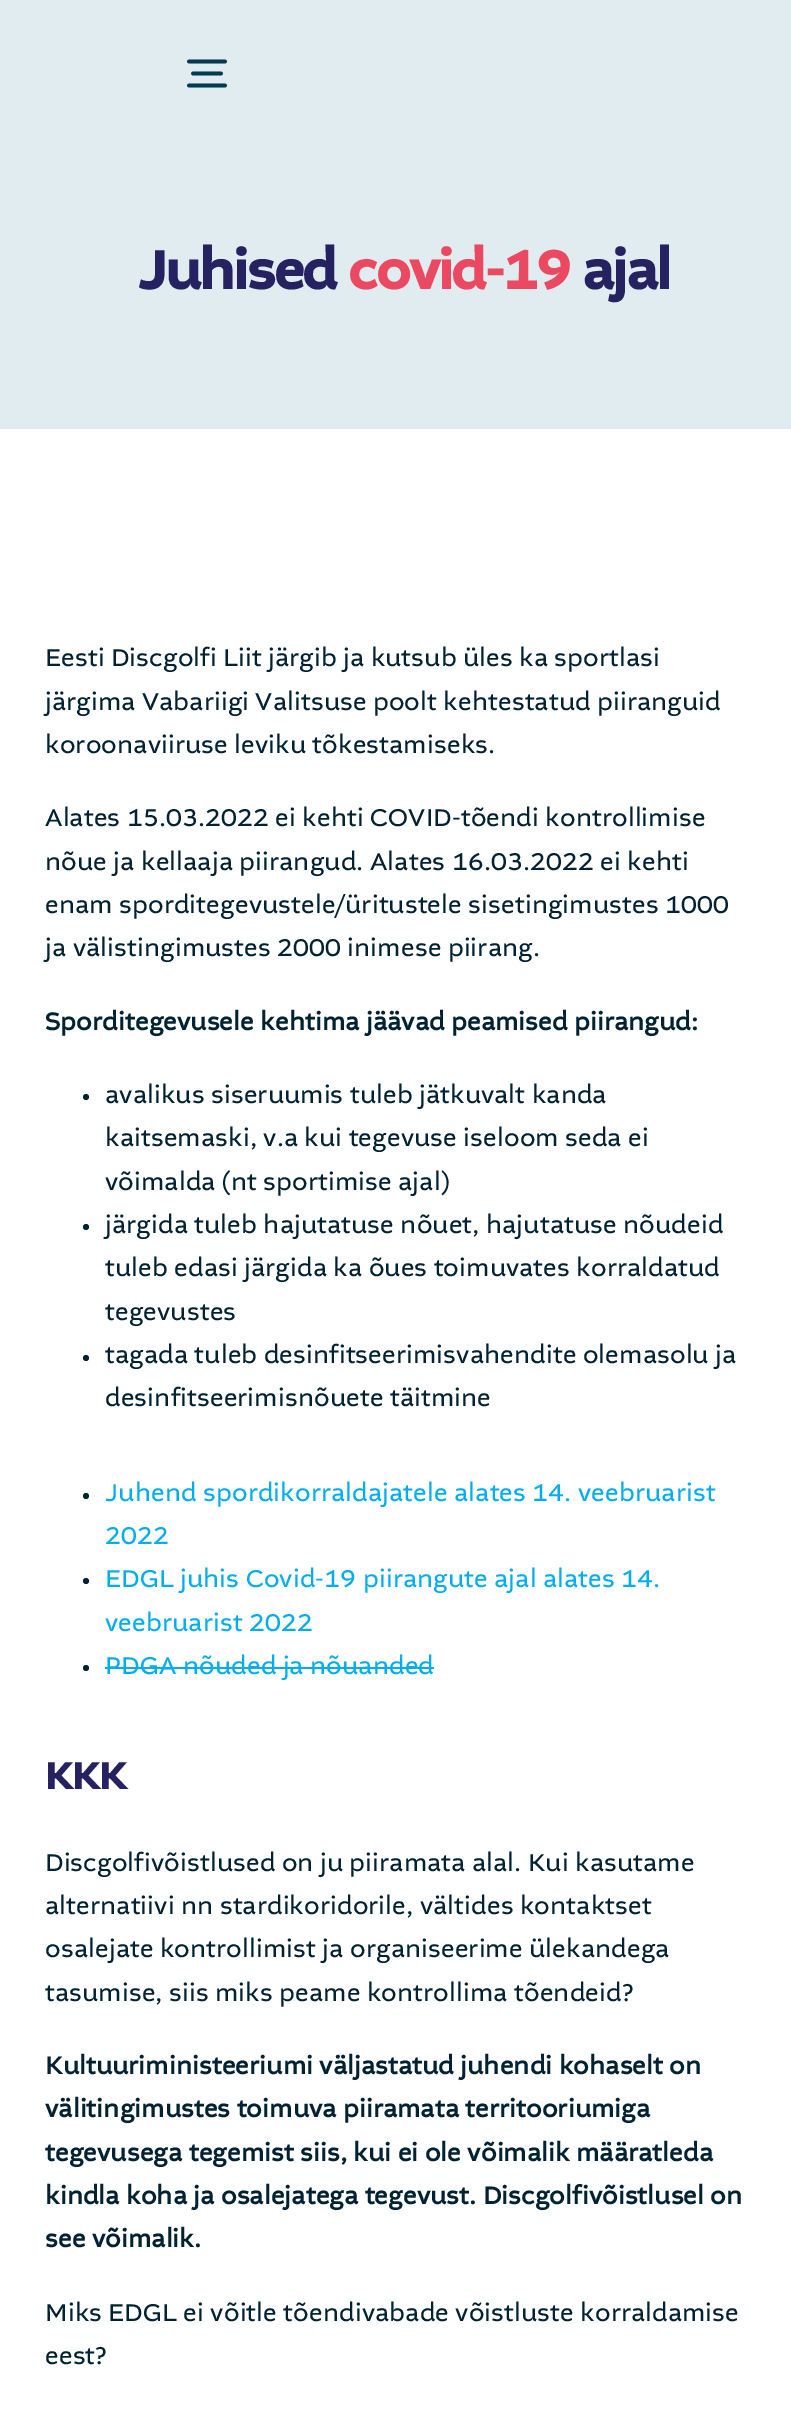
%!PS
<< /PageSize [791 2419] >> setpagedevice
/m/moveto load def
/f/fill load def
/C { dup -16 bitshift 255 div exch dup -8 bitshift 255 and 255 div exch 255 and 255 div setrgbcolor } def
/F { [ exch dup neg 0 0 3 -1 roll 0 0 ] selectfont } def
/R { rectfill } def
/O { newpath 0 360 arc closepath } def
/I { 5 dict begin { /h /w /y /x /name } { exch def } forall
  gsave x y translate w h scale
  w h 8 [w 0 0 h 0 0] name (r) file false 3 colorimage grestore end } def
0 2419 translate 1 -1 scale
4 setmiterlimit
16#FFFFFF C
0 0 791 2419 R
16#E0ECF0 C
0 0 791 429 R
(1.rgb) 187 59 40 29 I
/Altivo-Bold 56.5 F
16#262262 C
138 289 m -1.75 0 (Juhised) ashow
16#EB4962 C
348 289 m -1.75 0 (covid-19) ashow
16#262262 C
582 289 m -1.75 0 (ajal) ashow
/Altivo-Regular 25.5 F
16#002233 C
45 666 m .2 0 (Eesti Discgolfi Liit järgib ja kutsub üles ka sportlasi) ashow
45 710 m .2 0 (järgima Vabariigi Valitsuse poolt kehtestatud piiranguid) ashow
45 753 m .2 0 (koroonaviiruse leviku tõkestamiseks.) ashow
45 826 m .2 0 (Alates 15.03.2022 ei kehti COVID-tõendi kontrollimise) ashow
45 870 m .2 0 (nõue ja kellaaja piirangud. Alates 16.03.2022 ei kehti) ashow
45 913 m .2 0 (enam sporditegevustele/üritustele sisetingimustes 1000) ashow
45 956 m .2 0 (ja välistingimustes 2000 inimese piirang.) ashow
/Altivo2-Bold 25.5 F
45 1030 m .2 0 (Sporditegevusele kehtima jäävad peamised piirangud:) ashow
86 1097 3 O f
/Altivo-Regular 25.5 F
105 1103 m .2 0 (avalikus siseruumis tuleb jätkuvalt kanda) ashow
105 1146 m .2 0 (kaitsemaski, v.a kui tegevuse iseloom seda ei) ashow
105 1190 m .2 0 (võimalda \(nt sportimise ajal\)) ashow
86 1227 3 O f
105 1233 m .2 0 (järgida tuleb hajutatuse nõuet, hajutatuse nõudeid) ashow
105 1276 m .2 0 (tuleb edasi järgida ka õues toimuvates korraldatud) ashow
105 1320 m .2 0 (tegevustes) ashow
86 1358 3 O f
105 1363 m .2 0 (tagada tuleb desinfitseerimisvahendite olemasolu ja) ashow
105 1406 m .2 0 (desinfitseerimisnõuete täitmine) ashow
86 1496 3 O f
16#00AEEF C
105 1501 m .2 0 (Juhend spordikorraldajatele alates 14. veebruarist) ashow
105 1544 m .2 0 (2022) ashow
16#002233 C
86 1581 3 O f
16#00AEEF C
105 1587 m .2 0 (EDGL juhis Covid-19 piirangute ajal alates 14.) ashow
105 1631 m .2 0 (veebruarist 2022) ashow
16#002233 C
86 1668 3 O f
16#00AEEF C
105 1674 m .2 0 (PDGA nõuded ja nõuanded) ashow
105 1667 329 2 R
/Altivo-Bold 39 F
16#262262 C
45 1789 m -1 0 (KKK) ashow
/Altivo-Regular 25.5 F
16#002233 C
45 1871 m .2 0 (Discgolfivõistlused on ju piiramata alal. Kui kasutame) ashow
45 1914 m .2 0 (alternatiivi nn stardikoridorile, vältides kontaktset) ashow
45 1957 m .2 0 (osalejate kontrollimist ja organiseerime ülekandega) ashow
45 2001 m .2 0 (tasumise, siis miks peame kontrollima tõendeid?) ashow
/Altivo2-Bold 25.5 F
45 2074 m .2 0 (Kultuuriministeeriumi väljastatud juhendi kohaselt on) ashow
45 2117 m .2 0 (välitingimustes toimuva piiramata territooriumiga) ashow
45 2161 m .2 0 (tegevusega tegemist siis, kui ei ole võimalik määratleda) ashow
45 2204 m .2 0 (kindla koha ja osalejatega tegevust. Discgolfivõistlusel on) ashow
45 2247 m .2 0 (see võimalik.) ashow
/Altivo-Regular 25.5 F
45 2321 m .2 0 (Miks EDGL ei võitle tõendivabade võistluste korraldamise) ashow
45 2364 m .2 0 (eest?) ashow
showpage
